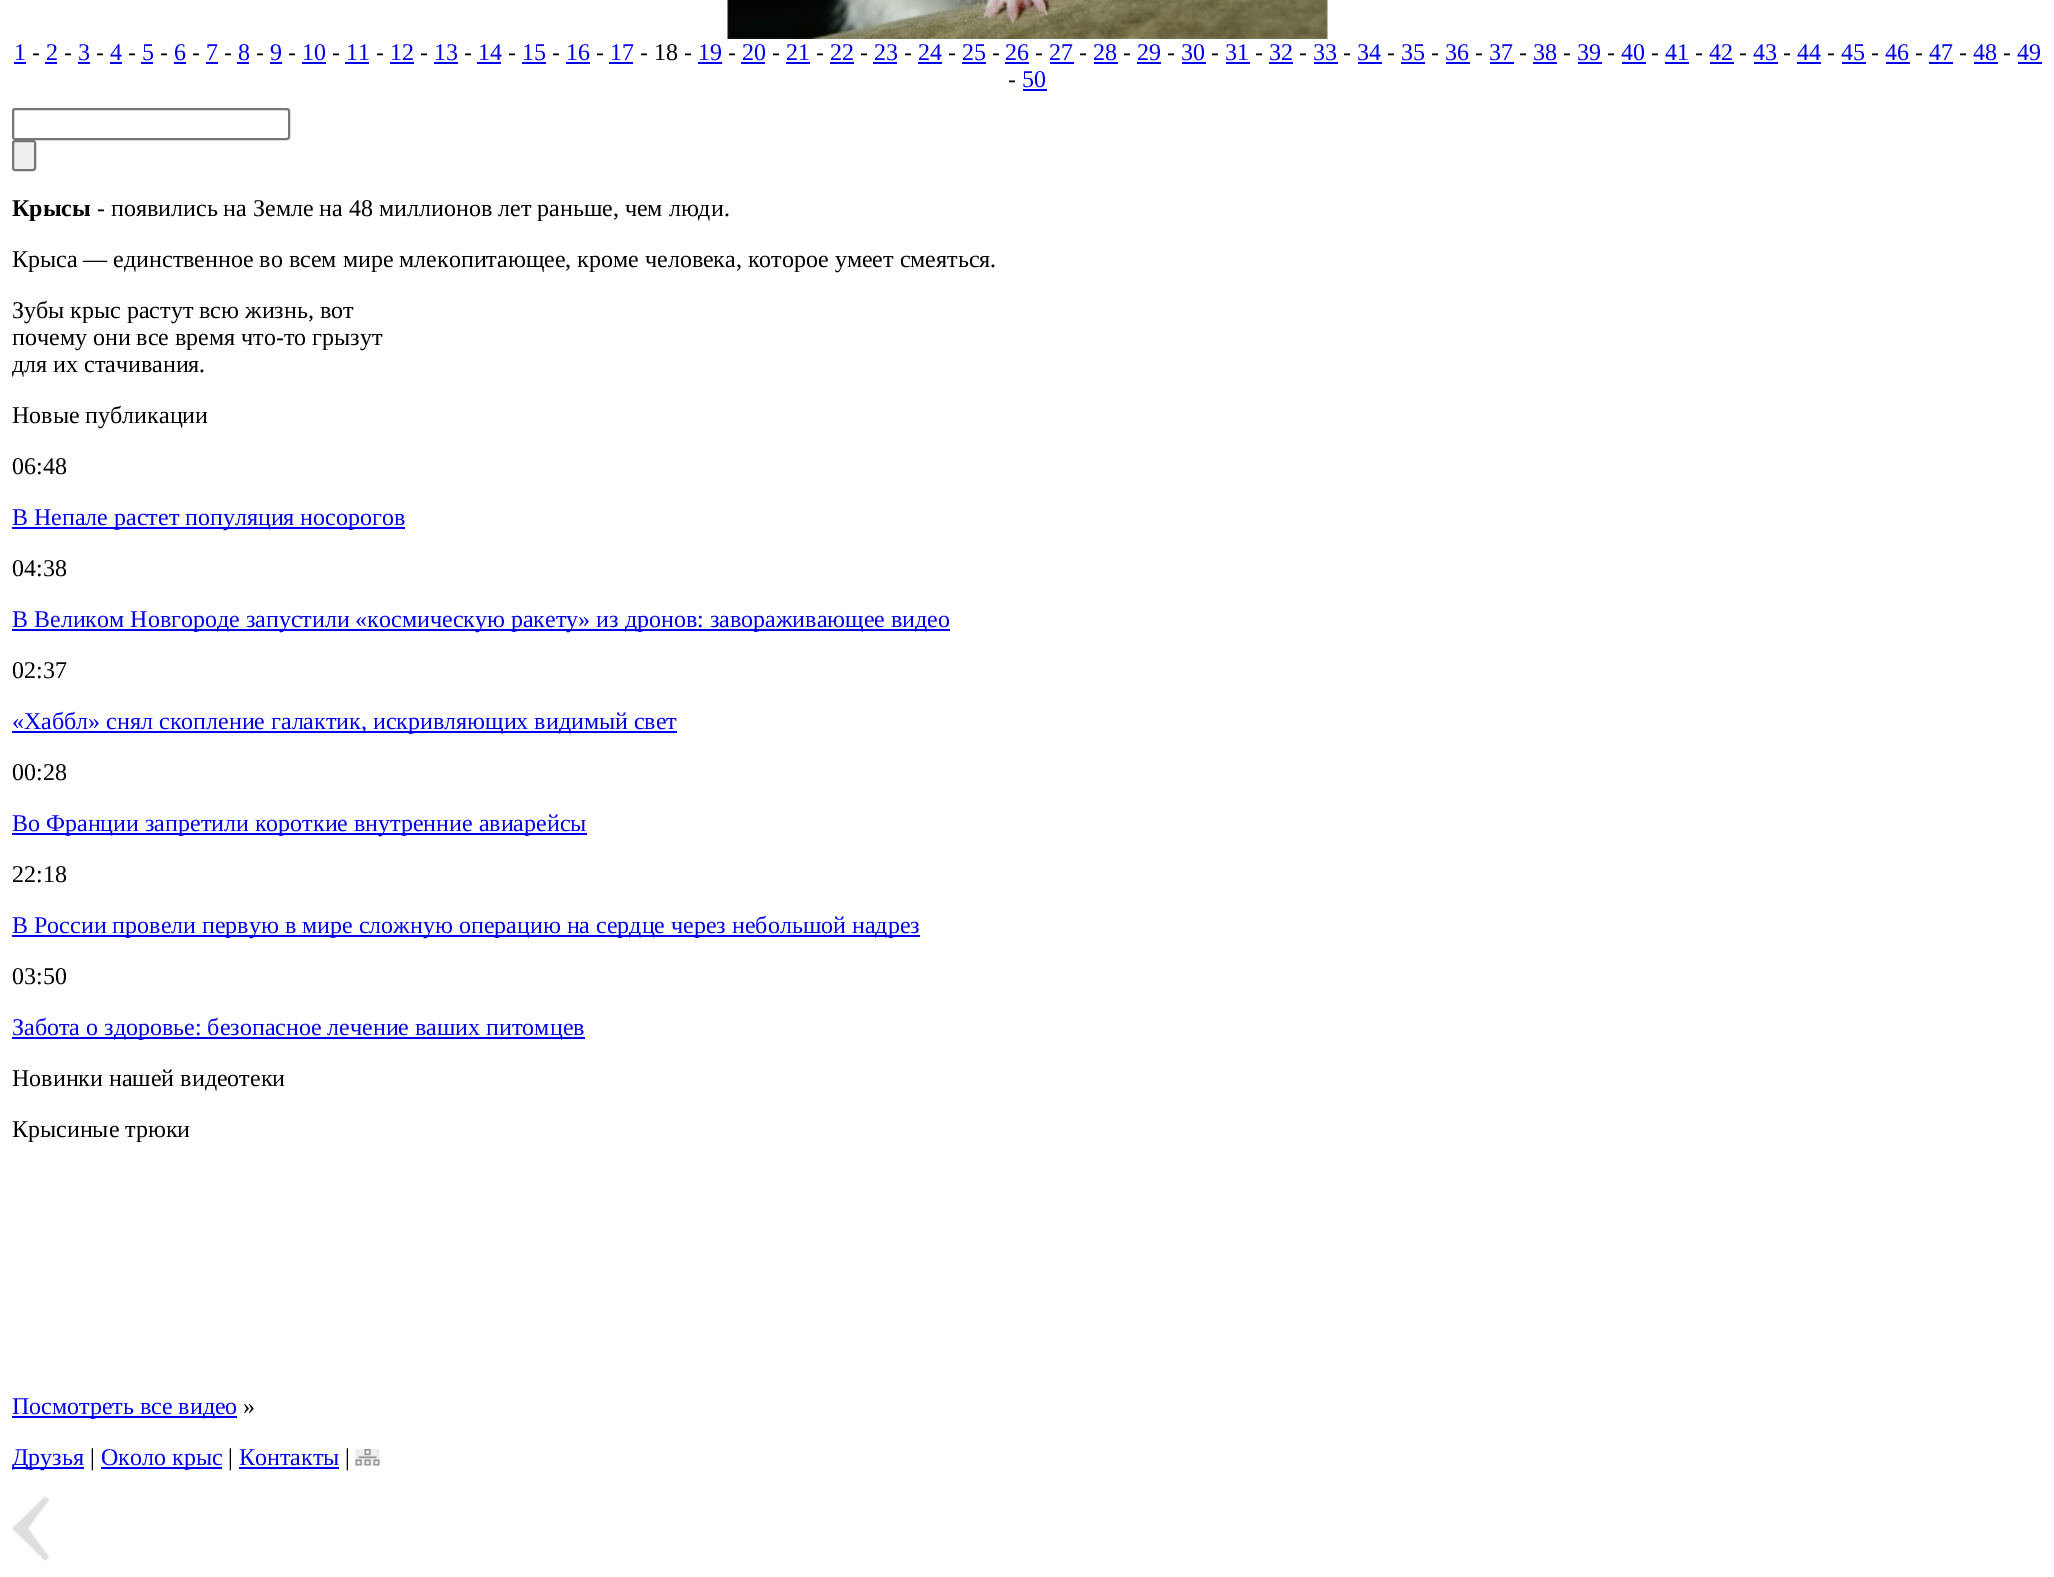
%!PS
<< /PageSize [2054 1577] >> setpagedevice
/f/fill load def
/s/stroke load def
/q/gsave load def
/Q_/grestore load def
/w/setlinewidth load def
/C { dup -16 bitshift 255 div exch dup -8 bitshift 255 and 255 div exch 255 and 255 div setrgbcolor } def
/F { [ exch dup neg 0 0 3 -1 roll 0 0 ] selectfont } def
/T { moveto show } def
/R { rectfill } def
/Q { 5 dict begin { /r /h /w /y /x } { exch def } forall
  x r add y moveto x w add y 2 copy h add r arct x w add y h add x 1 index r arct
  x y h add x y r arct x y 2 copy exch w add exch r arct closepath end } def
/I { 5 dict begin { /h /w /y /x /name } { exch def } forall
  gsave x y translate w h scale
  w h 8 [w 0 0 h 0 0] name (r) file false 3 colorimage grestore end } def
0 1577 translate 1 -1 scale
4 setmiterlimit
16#FFFFFF C
0 0 2054 1577 R
(1.rgb) 727 0 601 39 I
/LiberationSerif-Regular 24 F
16#0000EE C
(1) 14 60 T
14 62 12 2 R
16#000000 C
(-) 32 60 T
16#0000EE C
(2) 46 60 T
45 62 12 2 R
16#000000 C
(-) 64 60 T
16#0000EE C
(3) 78 60 T
78 62 12 2 R
16#000000 C
(-) 96 60 T
16#0000EE C
(4) 110 60 T
110 62 12 2 R
16#000000 C
(-) 128 60 T
16#0000EE C
(5) 142 60 T
141 62 12 2 R
16#000000 C
(-) 160 60 T
16#0000EE C
(6) 174 60 T
174 62 12 2 R
16#000000 C
(-) 192 60 T
16#0000EE C
(7) 206 60 T
206 62 12 2 R
16#000000 C
(-) 224 60 T
16#0000EE C
(8) 238 60 T
237 62 12 2 R
16#000000 C
(-) 256 60 T
16#0000EE C
(9) 270 60 T
270 62 12 2 R
16#000000 C
(-) 288 60 T
16#0000EE C
(10) 302 60 T
302 62 24 2 R
16#000000 C
(-) 332 60 T
16#0000EE C
(11) 346 60 T
345 62 24 2 R
16#000000 C
(-) 376 60 T
16#0000EE C
(12) 390 60 T
390 62 24 2 R
16#000000 C
(-) 420 60 T
16#0000EE C
(13) 434 60 T
434 62 24 2 R
16#000000 C
(-) 464 60 T
16#0000EE C
(14) 478 60 T
477 62 24 2 R
16#000000 C
(-) 508 60 T
16#0000EE C
(15) 522 60 T
522 62 24 2 R
16#000000 C
(-) 552 60 T
16#0000EE C
(16) 566 60 T
566 62 24 2 R
16#000000 C
(-) 596 60 T
16#0000EE C
(17) 610 60 T
609 62 24 2 R
16#000000 C
(- 18 -) 640 60 T
16#0000EE C
(19) 698 60 T
698 62 24 2 R
16#000000 C
(-) 728 60 T
16#0000EE C
(20) 742 60 T
741 62 24 2 R
16#000000 C
(-) 772 60 T
16#0000EE C
(21) 786 60 T
786 62 24 2 R
16#000000 C
(-) 816 60 T
16#0000EE C
(22) 830 60 T
830 62 24 2 R
16#000000 C
(-) 860 60 T
16#0000EE C
(23) 874 60 T
873 62 24 2 R
16#000000 C
(-) 904 60 T
16#0000EE C
(24) 918 60 T
918 62 24 2 R
16#000000 C
(-) 948 60 T
16#0000EE C
(25) 962 60 T
962 62 24 2 R
16#000000 C
(-) 992 60 T
16#0000EE C
(26) 1005 60 T
1005 62 24 2 R
16#000000 C
(-) 1035 60 T
16#0000EE C
(27) 1049 60 T
1050 62 24 2 R
16#000000 C
(-) 1079 60 T
16#0000EE C
(28) 1093 60 T
1094 62 24 2 R
16#000000 C
(-) 1123 60 T
16#0000EE C
(29) 1137 60 T
1137 62 24 2 R
16#000000 C
(-) 1167 60 T
16#0000EE C
(30) 1181 60 T
1182 62 24 2 R
16#000000 C
(-) 1211 60 T
16#0000EE C
(31) 1225 60 T
1226 62 24 2 R
16#000000 C
(-) 1255 60 T
16#0000EE C
(32) 1269 60 T
1269 62 24 2 R
16#000000 C
(-) 1299 60 T
16#0000EE C
(33) 1313 60 T
1314 62 24 2 R
16#000000 C
(-) 1343 60 T
16#0000EE C
(34) 1357 60 T
1358 62 24 2 R
16#000000 C
(-) 1387 60 T
16#0000EE C
(35) 1401 60 T
1401 62 24 2 R
16#000000 C
(-) 1431 60 T
16#0000EE C
(36) 1445 60 T
1446 62 24 2 R
16#000000 C
(-) 1475 60 T
16#0000EE C
(37) 1489 60 T
1490 62 24 2 R
16#000000 C
(-) 1519 60 T
16#0000EE C
(38) 1533 60 T
1533 62 24 2 R
16#000000 C
(-) 1563 60 T
16#0000EE C
(39) 1577 60 T
1578 62 24 2 R
16#000000 C
(-) 1607 60 T
16#0000EE C
(40) 1621 60 T
1622 62 24 2 R
16#000000 C
(-) 1651 60 T
16#0000EE C
(41) 1665 60 T
1665 62 24 2 R
16#000000 C
(-) 1695 60 T
16#0000EE C
(42) 1709 60 T
1710 62 24 2 R
16#000000 C
(-) 1739 60 T
16#0000EE C
(43) 1753 60 T
1754 62 24 2 R
16#000000 C
(-) 1783 60 T
16#0000EE C
(44) 1797 60 T
1797 62 24 2 R
16#000000 C
(-) 1827 60 T
16#0000EE C
(45) 1841 60 T
1842 62 24 2 R
16#000000 C
(-) 1871 60 T
16#0000EE C
(46) 1885 60 T
1886 62 24 2 R
16#000000 C
(-) 1915 60 T
16#0000EE C
(47) 1929 60 T
1929 62 24 2 R
16#000000 C
(-) 1959 60 T
16#0000EE C
(48) 1973 60 T
1974 62 24 2 R
16#000000 C
(-) 2003 60 T
16#0000EE C
(49) 2017 60 T
2018 62 24 2 R
16#000000 C
(-) 1008 87 T
16#0000EE C
(50) 1022 87 T
1023 89 24 2 R
16#767676 C
2 w
13 109 276 30 2 Q s
16#EFEFEF C
13 141 22 29 2 Q q f Q_
16#767676 C
s
/LiberationSerif-Bold 24 F
16#000000 C
(Крысы) 12 216 T
/LiberationSerif-Regular 24 F
(- появились на Земле на 48 миллионов лет раньше, чем люди.) 97 216 T
(Крыса — единственное во всем мире млекопитающее, кроме человека, которое умеет смеяться.) 12 267 T
(Зубы крыс растут всю жизнь, вот) 12 318 T
(почему они все время что-то грызут) 12 345 T
(для их стачивания.) 12 372 T
(Новые публикации) 12 423 T
(06:48) 12 474 T
16#0000EE C
12 527 393 2 R
(В Непале растет популяция носорогов) 12 525 T
16#000000 C
(04:38) 12 576 T
16#0000EE C
12 629 938 2 R
(В Великом Новгороде запустили «космическую ракету» из дронов: завораживающее видео) 12 627 T
16#000000 C
(02:37) 12 678 T
16#0000EE C
12 731 665 2 R
(«Хаббл» снял скопление галактик, искривляющих видимый свет) 12 729 T
16#000000 C
(00:28) 12 780 T
16#0000EE C
12 833 575 2 R
(Во Франции запретили короткие внутренние авиарейсы) 12 831 T
16#000000 C
(22:18) 12 882 T
16#0000EE C
12 935 908 2 R
(В России провели первую в мире сложную операцию на сердце через небольшой надрез) 12 933 T
16#000000 C
(03:50) 12 984 T
16#0000EE C
12 1037 573 2 R
(Забота о здоровье: безопасное лечение ваших питомцев) 12 1035 T
16#000000 C
(Новинки нашей видеотеки) 12 1086 T
(Крысиные трюки) 12 1137 T
16#0000EE C
12 1416 225 2 R
(Посмотреть все видео) 12 1414 T
16#000000 C
(») 243 1414 T
16#0000EE C
12 1467 72 2 R
(Друзья) 12 1465 T
16#000000 C
(|) 90 1465 T
16#0000EE C
101 1467 121 2 R
(Около крыс) 101 1465 T
16#000000 C
(|) 228 1465 T
16#0000EE C
(Контакты) 239 1465 T
239 1467 100 2 R
16#000000 C
(|) 345 1465 T
(2.rgb) 355 1449 25 17 I
(3.rgb) 12 1496 38 65 I
showpage
